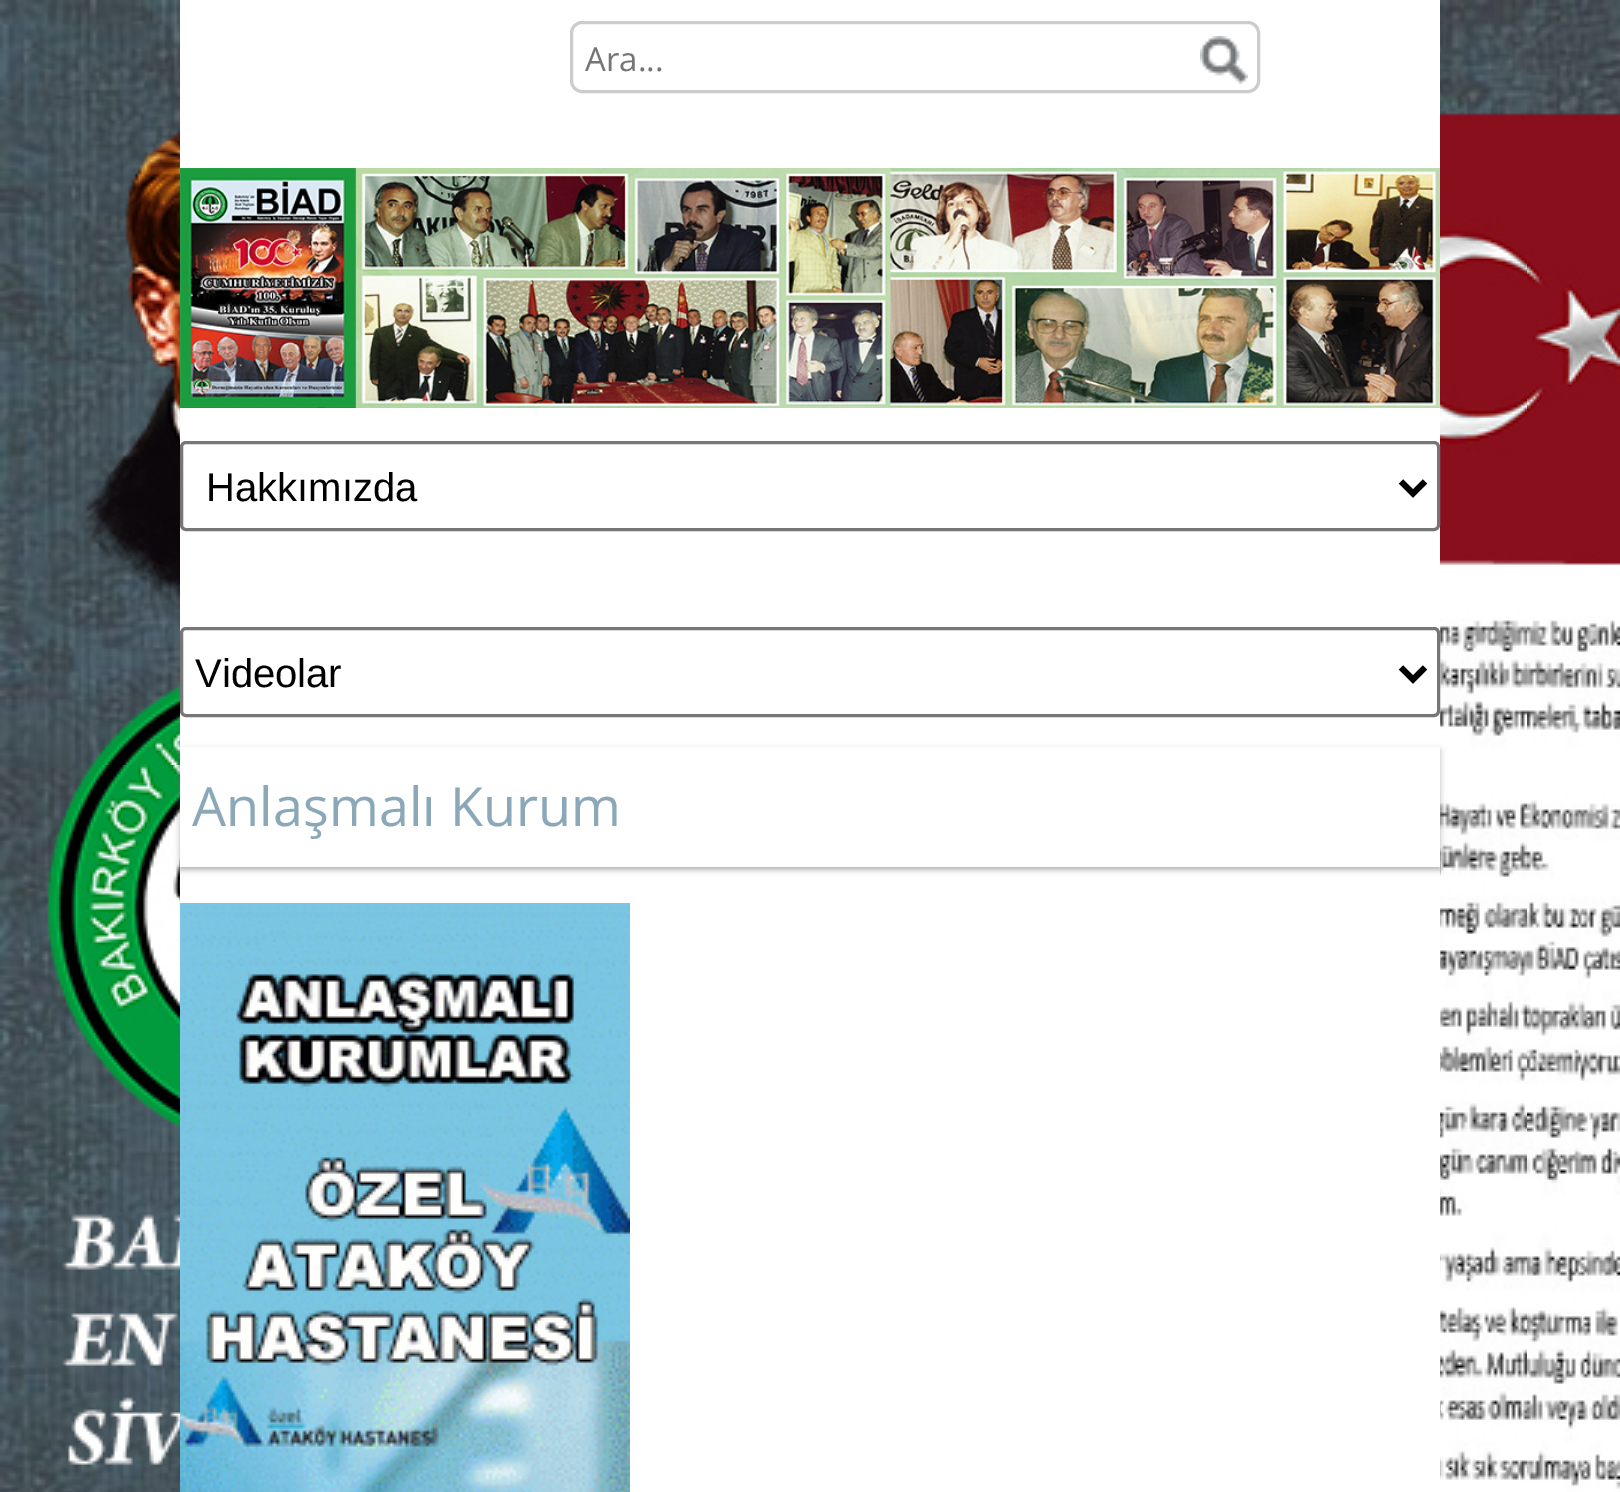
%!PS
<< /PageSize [1620 1492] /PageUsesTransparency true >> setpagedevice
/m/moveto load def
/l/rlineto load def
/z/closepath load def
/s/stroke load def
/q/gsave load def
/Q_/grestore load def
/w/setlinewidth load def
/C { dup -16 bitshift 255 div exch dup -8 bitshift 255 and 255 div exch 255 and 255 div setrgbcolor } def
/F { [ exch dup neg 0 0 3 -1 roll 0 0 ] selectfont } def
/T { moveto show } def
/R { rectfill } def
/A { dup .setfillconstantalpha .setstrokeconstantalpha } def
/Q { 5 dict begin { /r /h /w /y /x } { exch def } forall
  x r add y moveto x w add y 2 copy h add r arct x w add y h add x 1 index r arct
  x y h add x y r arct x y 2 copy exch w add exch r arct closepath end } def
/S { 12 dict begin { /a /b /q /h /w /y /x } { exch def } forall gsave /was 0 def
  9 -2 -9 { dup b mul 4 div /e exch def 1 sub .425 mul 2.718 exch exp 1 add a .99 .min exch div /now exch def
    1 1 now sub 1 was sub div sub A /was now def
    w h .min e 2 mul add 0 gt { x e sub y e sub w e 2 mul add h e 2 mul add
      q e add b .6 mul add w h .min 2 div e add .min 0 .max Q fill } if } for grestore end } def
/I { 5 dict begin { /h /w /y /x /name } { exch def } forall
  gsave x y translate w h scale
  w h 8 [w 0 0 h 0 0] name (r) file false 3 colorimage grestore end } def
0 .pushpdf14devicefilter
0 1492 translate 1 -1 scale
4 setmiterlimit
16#FFFFFF C
0 0 1620 1492 R
(1.rgb) 0 0 1620 1492 I
180 0 1260 1492 R
16#CCCCCC C
3 w
571.5 22.5 687 69 10.5 Q s
/OpenSans-Regular 33 F
16#757575 C
(Ara...) 585 71 T
(2.rgb) 1200 36 48 48 I
(3.rgb) 180 168 1260 240 I
16#767676 C
181.5 442.5 1257 87 4.5 Q s
16#000000 C
6 w
1401 481.5 m 12 12 l 12 -12 l s
/LiberationSans-Regular 40 F
(Hakkımızda) 206 501 T
16#767676 C
3 w
181.5 628.5 1257 87 4.5 Q s
16#000000 C
6 w
1401 667.5 m 12 12 l 12 -12 l s
(Videolar) 195 687 T
q
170 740 m 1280 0 l 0 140 l -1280 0 l z 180 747 m 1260 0 l 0 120 l -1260 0 l z eoclip newpath
16#646464 C
180 750 1260 120 0 3 .5 S
Q_
/OpenSans-Regular 54 F
16#8BA8B9 C
(Anlaşmalı Kurum) 192 826 T
(4.rgb) 180 903 450 589 I
.poppdf14devicefilter showpage
